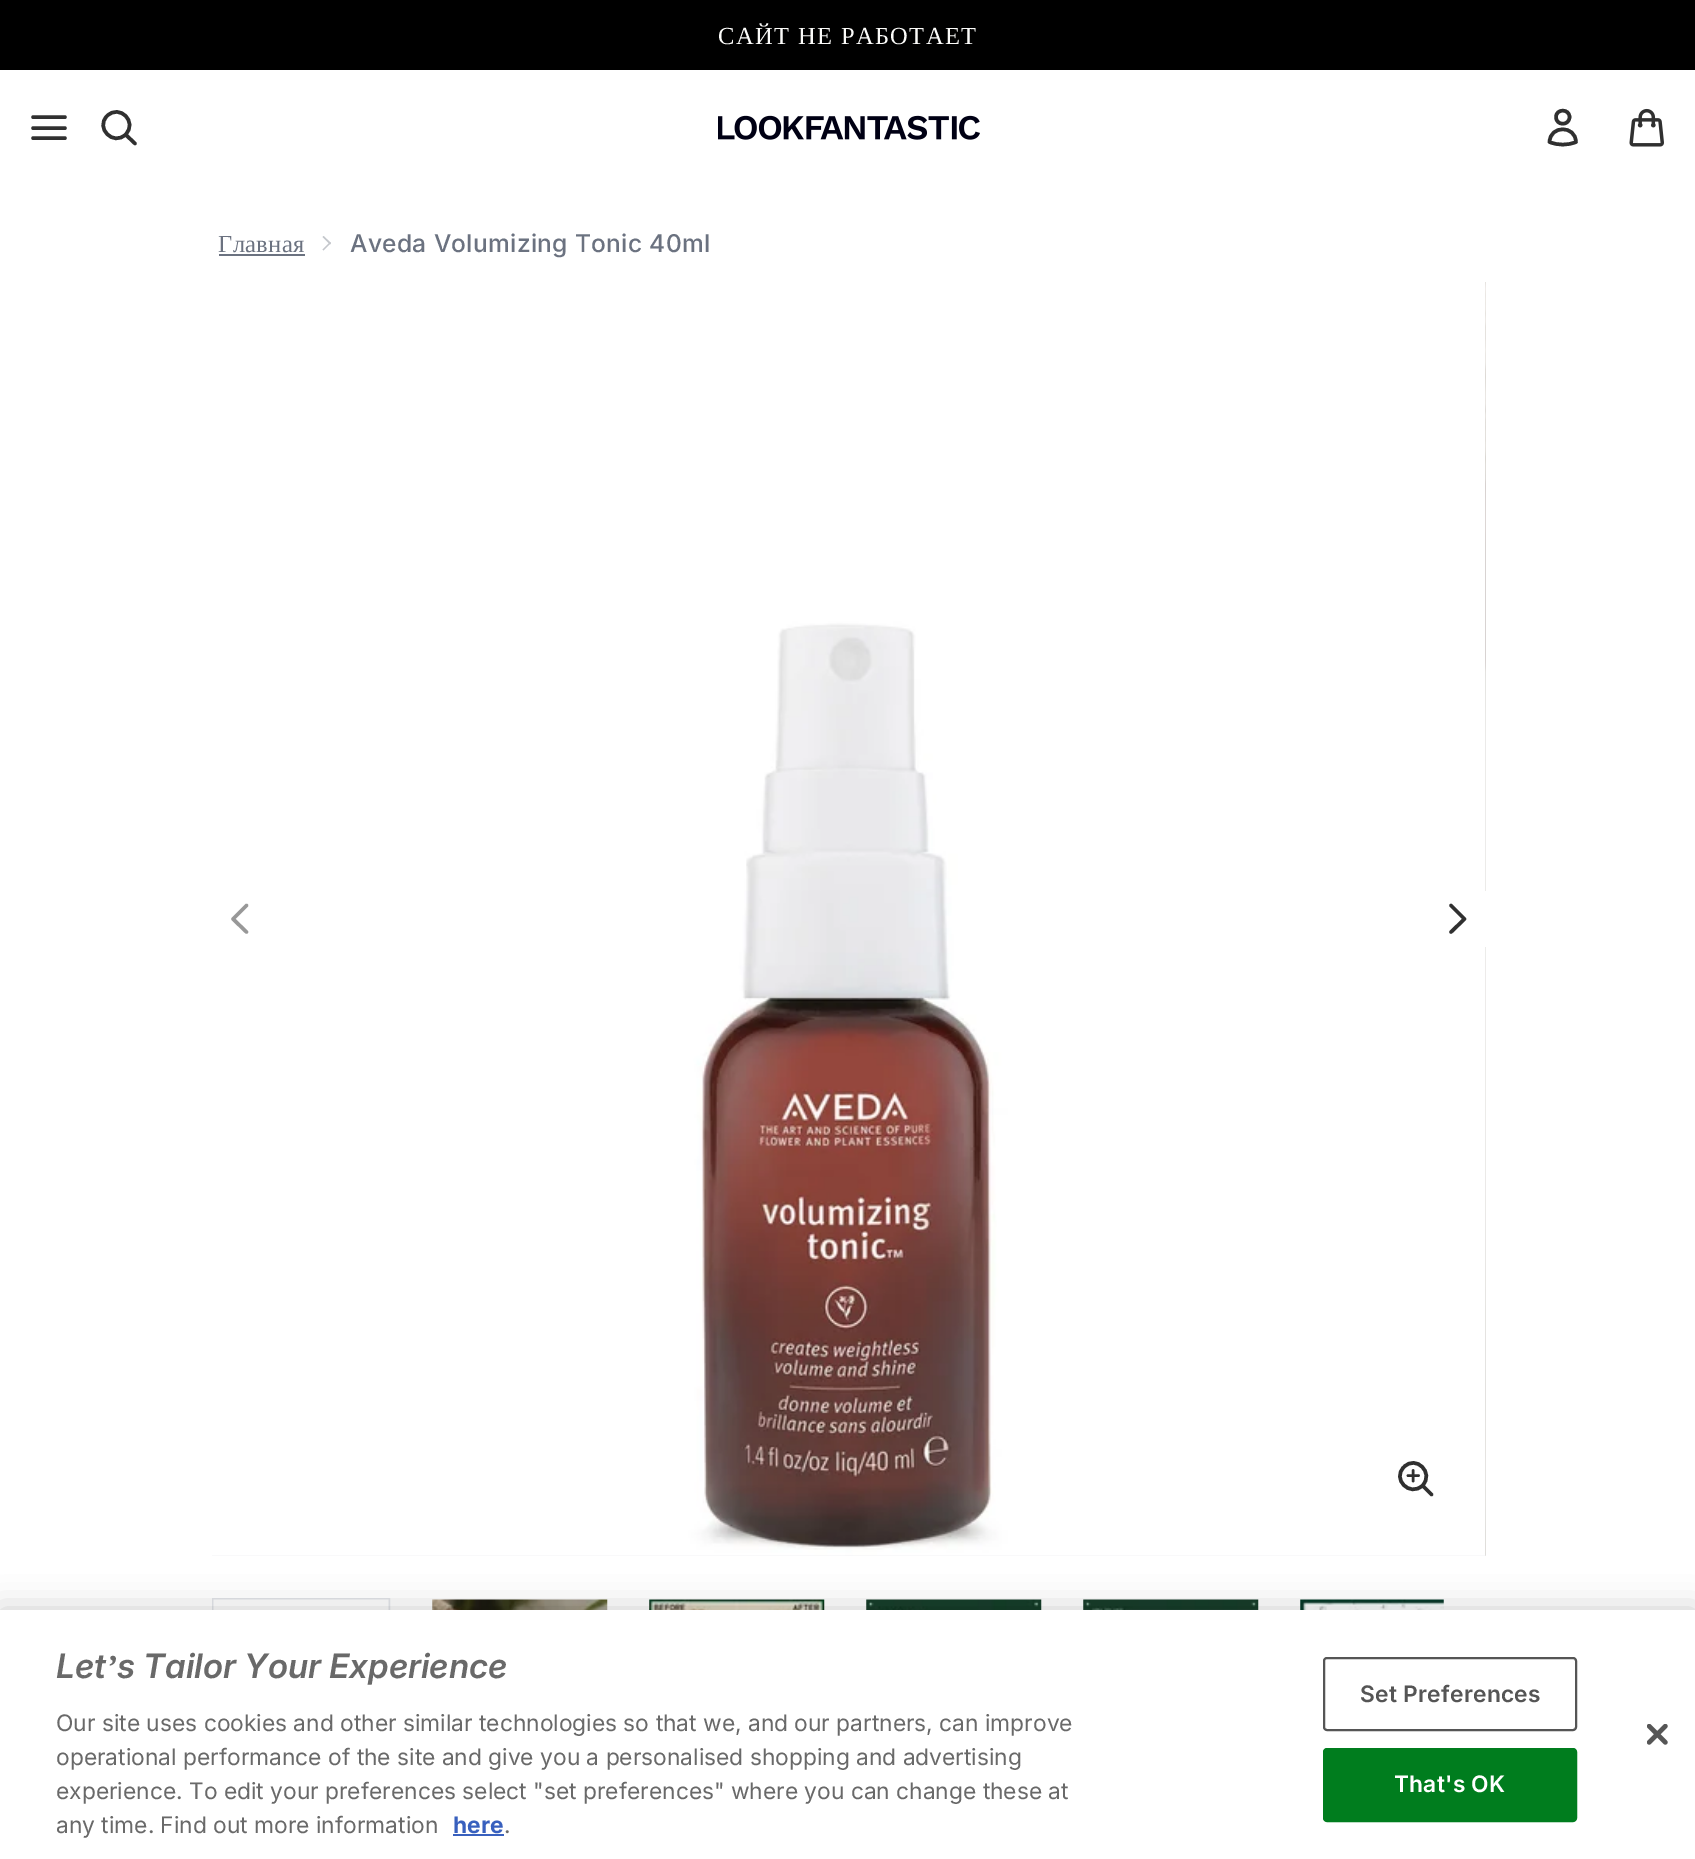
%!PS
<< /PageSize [1695 1859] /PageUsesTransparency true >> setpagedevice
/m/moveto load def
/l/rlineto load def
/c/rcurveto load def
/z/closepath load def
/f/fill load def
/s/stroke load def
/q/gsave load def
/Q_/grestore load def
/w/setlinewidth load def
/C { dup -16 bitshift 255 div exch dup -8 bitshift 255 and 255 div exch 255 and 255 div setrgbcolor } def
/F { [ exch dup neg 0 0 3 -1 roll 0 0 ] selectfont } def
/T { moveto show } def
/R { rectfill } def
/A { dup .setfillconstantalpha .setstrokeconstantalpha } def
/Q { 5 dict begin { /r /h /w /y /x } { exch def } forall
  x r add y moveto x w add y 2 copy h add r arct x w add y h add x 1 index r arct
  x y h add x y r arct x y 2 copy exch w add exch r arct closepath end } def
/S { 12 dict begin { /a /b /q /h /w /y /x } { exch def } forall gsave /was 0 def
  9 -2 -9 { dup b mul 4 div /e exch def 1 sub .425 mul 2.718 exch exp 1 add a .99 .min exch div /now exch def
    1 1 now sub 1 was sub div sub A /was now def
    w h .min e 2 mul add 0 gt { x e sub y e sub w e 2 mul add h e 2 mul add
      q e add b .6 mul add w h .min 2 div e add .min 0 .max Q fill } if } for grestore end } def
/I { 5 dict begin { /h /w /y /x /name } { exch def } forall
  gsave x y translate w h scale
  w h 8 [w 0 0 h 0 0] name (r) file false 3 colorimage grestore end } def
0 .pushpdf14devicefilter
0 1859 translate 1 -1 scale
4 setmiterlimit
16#FFFFFF C
0 0 1695 1859 R
16#000000 C
0 0 1695 70 R
/LiberationSerif-Regular 24.5 F
16#FBFBF9 C
718 44 m 1.4 0 (САЙТ НЕ РАБОТАЕТ) ashow
16#303030 C
3.5 w
1 setlinecap
1 setlinejoin
33 128 m 32 0 l 33 117 m 32 0 l 33 138 m 32 0 l s
135 143.5 m -9.5 -9 l 125.5 134.5 m 12.5 -12.5 -6 -31 -18.5 -18.5 c -12 12 6.5 30.5 18.5 18.5 c z s
(1.rgb) 718 115 262 25 I
1569.5 117 m 0 9 -13.5 9 -13.5 0 c 0 -8.5 13.5 -8.5 13.5 0 c z 1549.5 142 m .5 -17 26 -17 26.5 0 c -8.5 3.5 -18 3.5 -26.5 0 c z s
(2.rgb) 1629 108 35 39 I
16#6B7280 C
218 252 m .35 0 (Главная) ashow
219 254 86 2 R
16#C4C7CC C
323.5 236 m 7.5 7 l -1 1.5 l -7.5 -7.5 l z f
330 242 m 1 1 l -7.5 7.5 l -1 -1 l z f
/Inter-Medium 24.5 F
16#6B7280 C
350 252 m .35 0 (Aveda Volumizing Tonic 40ml) ashow
16#F1F2F3 C
212 282 1274 1274 R
(3.rgb) 212 282 1274 1274 I
(4.rgb) 1485 282 1 1274 I
16#989898 C
246.5 932 m -13.5 -13 l 13.5 -13.5 l s
16#FFFFFF C
1485 891 1 56 R
16#303030 C
1451 905.5 m 13.5 13.5 l -13.5 13 l s
1431.5 1494.5 m -9 -9 l 1422.5 1485.5 m 12 -12.5 -6.5 -31 -18.5 -18.5 c -12.5 12 6 30.5 18.5 18.5 c z s
2.6 w
1408 1475.5 m 10.5 0 l 1413 1470.5 m 0 10.5 l s
16#E5E7EB C
2 w
0 setlinecap
0 setlinejoin
213 1599 176 176 rectstroke
(5.rgb) 213 1599 176 11 I
(6.rgb) 432 1599 176 11 I
(7.rgb) 649 1599 176 11 I
(8.rgb) 866 1599 176 11 I
(9.rgb) 1083 1599 176 11 I
(10.rgb) 1300 1599 144 11 I
16#000000 C
0 1610 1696 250 0 16 .2 S
16#FFFFFF C
0 1610 1695 249 R
/Inter-SemiBoldItalic 33.6 F
16#696969 C
(Let) 56 1678 T
/LiberationSerif-BoldItalic 33.6 F
(’) 106 1678 T
/Inter-SemiBoldItalic 33.6 F
(s Tailor Your Experience) 117 1678 T
/Inter-Regular 22.75 F
(Our site uses cookies and other similar technologies so that we, and our partners, can improve) 56 1731 T
(operational performance of the site and give you a personalised shopping and advertising) 56 1765 T
(experience. To edit your preferences select "set preferences" where you can change these at) 56 1799 T
(any time. Find out more information) 56 1833 T
/Inter-Bold 22.75 F
16#3860BE C
(here) 453 1833 T
453 1834 51 2 R
/Inter-Regular 22.75 F
16#696969 C
(.) 504 1833 T
16#555555 C
1324 1658 252 72 3 Q s
/Inter-SemiBold 22.75 F
1360 1702 m .25 0 (Set Preferences) ashow
16#007D1E C
1324 1749 252 72 3 Q q f Q_
s
16#FFFFFF C
1394 1792 m .25 0 (That's OK) ashow
(11.rgb) 1647 1724 21 21 I
.poppdf14devicefilter showpage
